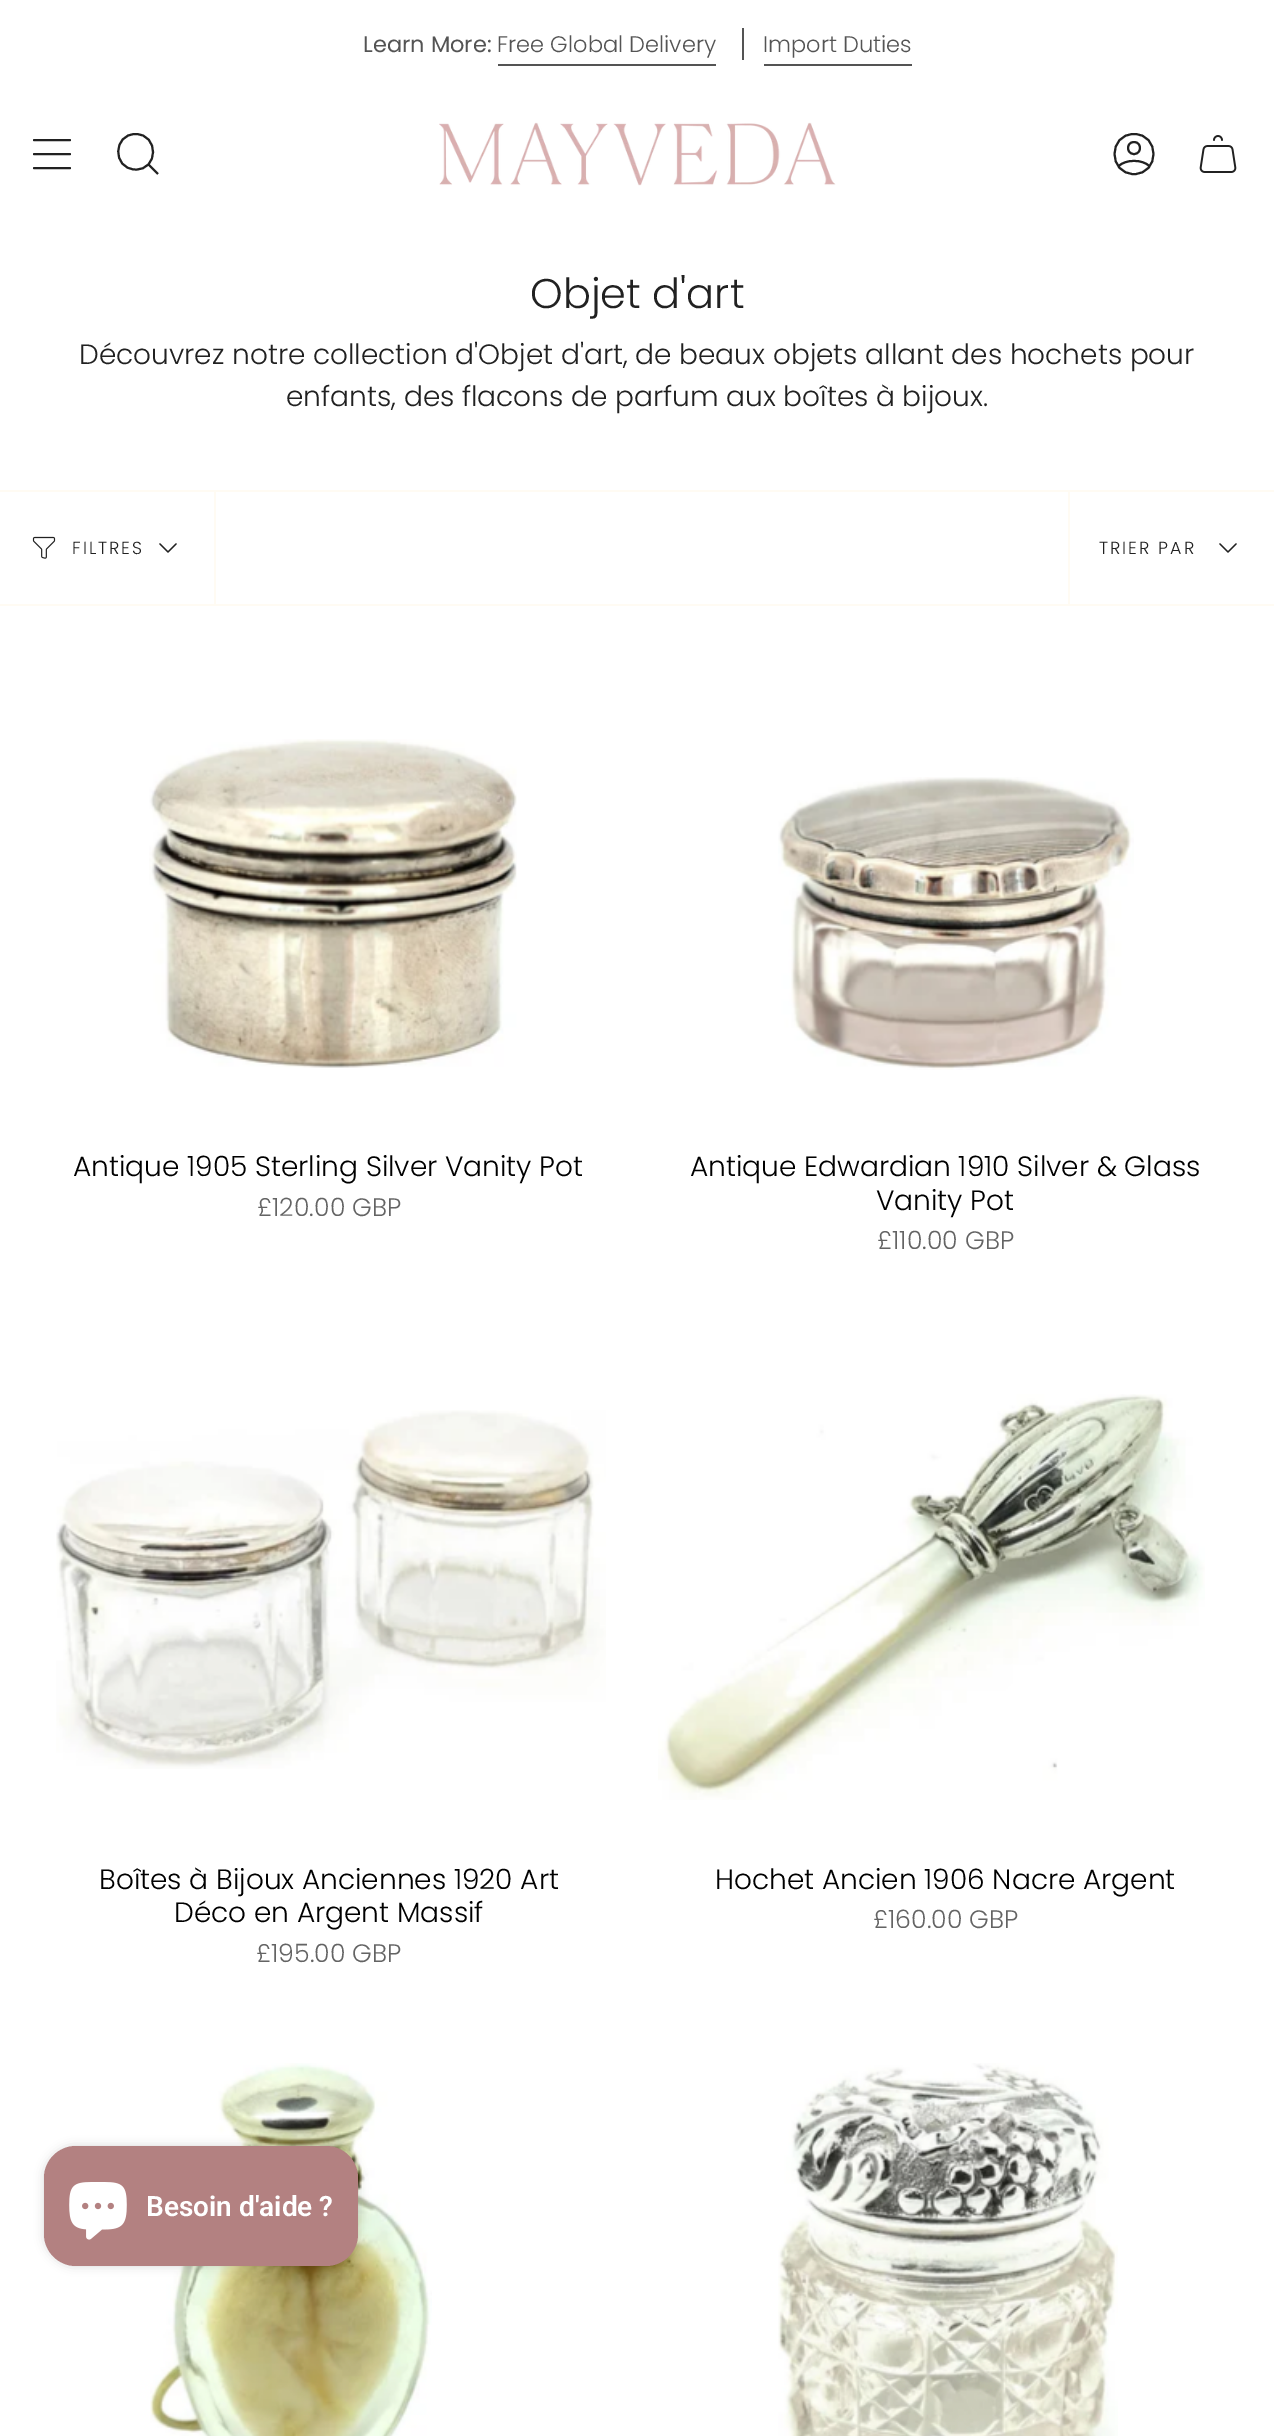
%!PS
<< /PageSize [1274 2436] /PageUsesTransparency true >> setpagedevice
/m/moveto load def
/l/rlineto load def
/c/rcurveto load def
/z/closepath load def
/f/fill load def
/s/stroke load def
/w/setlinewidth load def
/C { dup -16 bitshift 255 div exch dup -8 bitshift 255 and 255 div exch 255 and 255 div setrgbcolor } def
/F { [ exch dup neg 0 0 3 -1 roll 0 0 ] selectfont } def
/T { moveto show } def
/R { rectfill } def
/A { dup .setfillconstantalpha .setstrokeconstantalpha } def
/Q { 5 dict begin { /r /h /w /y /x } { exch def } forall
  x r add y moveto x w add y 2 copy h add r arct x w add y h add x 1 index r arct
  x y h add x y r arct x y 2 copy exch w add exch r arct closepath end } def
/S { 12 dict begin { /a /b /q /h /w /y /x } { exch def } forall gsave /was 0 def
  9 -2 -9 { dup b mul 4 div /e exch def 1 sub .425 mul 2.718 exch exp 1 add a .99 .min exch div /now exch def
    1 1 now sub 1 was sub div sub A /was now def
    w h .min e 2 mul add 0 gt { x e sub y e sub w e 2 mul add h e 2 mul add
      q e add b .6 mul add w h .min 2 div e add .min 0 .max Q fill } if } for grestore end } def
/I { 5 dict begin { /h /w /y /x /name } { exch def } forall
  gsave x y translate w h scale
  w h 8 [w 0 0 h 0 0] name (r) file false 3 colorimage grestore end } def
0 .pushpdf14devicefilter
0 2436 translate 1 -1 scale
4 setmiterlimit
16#FFFFFF C
0 0 1274 2436 R
/Poppins-Regular 22.5 F
16#545454 C
(Learn More:) 363 52 T
/Poppins-Light 22.5 F
(Free Global Delivery) 497 52 T
498 64 218 2 R
742 28 2 32 R
(Import Duties) 763 52 T
764 64 148 2 R
16#212121 C
2 w
1 setlinecap
1 setlinejoin
34 140 m 36 0 l 34 154 m 36 0 l 34 168 m 36 0 l s
0 setlinecap
0 setlinejoin
135.5 134 m 23.5 0 23.5 36.5 -.5 35.5 c -23 -1 -22 -35.5 .5 -35.5 c z 148 164 m 10 10 l s
(1.rgb) 439 122 397 64 I
1 setlinecap
1 setlinejoin
1134 134 m -26 0 -26 40 0 40 c 26 0 26 -40 0 -40 c z 1118.5 166.5 m 6 -7.5 25 -7.5 31 0 c 1134 154 m 8 0 8 -12 0 -12 c -8 0 -8 12 0 12 c z s
(2.rgb) 1199 135 38 38 I
/Poppins-Light 41.5 F
(Objet d'art) 530 308 T
/Poppins-Light 28 F
(Découvrez notre collection d'Objet d'art, de beaux objets allant des hochets pour) 79 364 T
(enfants, des flacons de parfum aux boîtes à bijoux.) 286 406 T
16#FFFBF3 C
0 490 1274 2 R
0 604 1274 2 R
214 492 2 112 R
(3.rgb) 32 536 24 23 I
/Poppins-Light 17.5 F
16#212121 C
72 554 m 2 0 (FILTRES) ashow
1.3 w
160 544 m 8 8 l 8 -8 l s
16#FFFBF3 C
1068 492 2 112 R
16#212121 C
1099 554 m 2 0 (TRIER PAR) ashow
1220 544 m 8 8 l 8 -8 l s
(4.rgb) 149 739 368 329 I
/Poppins-Light 28 F
16#000000 C
(Antique 1905 Sterling Silver Vanity Pot) 73 1176 T
/Poppins-Light 25.25 F
16#646464 C
(£120.00 GBP) 257 1216 T
(5.rgb) 778 777 356 293 I
/Poppins-Light 28 F
16#000000 C
(Antique Edwardian 1910 Silver & Glass) 690 1176 T
(Vanity Pot) 876 1210 T
/Poppins-Light 25.25 F
16#646464 C
(£110.00 GBP) 877 1249 T
(6.rgb) 56 1410 550 359 I
/Poppins-Light 28 F
16#000000 C
(Boîtes à Bijoux Anciennes 1920 Art) 99 1889 T
(Déco en Argent Massif) 174 1922 T
/Poppins-Light 25.25 F
16#646464 C
(£195.00 GBP) 256 1962 T
(7.rgb) 658 1394 547 406 I
/Poppins-Light 28 F
16#000000 C
(Hochet Ancien 1906 Nacre Argent) 715 1889 T
/Poppins-Light 25.25 F
16#646464 C
(£160.00 GBP) 873 1928 T
(8.rgb) 150 2063 282 373 I
(9.rgb) 778 2063 340 373 I
16#000000 C
44 2146 314 120 32 5 .15 S
16#B38181 C
44 2146 314 120 32 Q f
(10.rgb) 69 2182 58 58 I
/Roboto-SemiBold 28 F
16#FFFFFF C
(Besoin d'aide ?) 146 2216 T
.poppdf14devicefilter showpage
